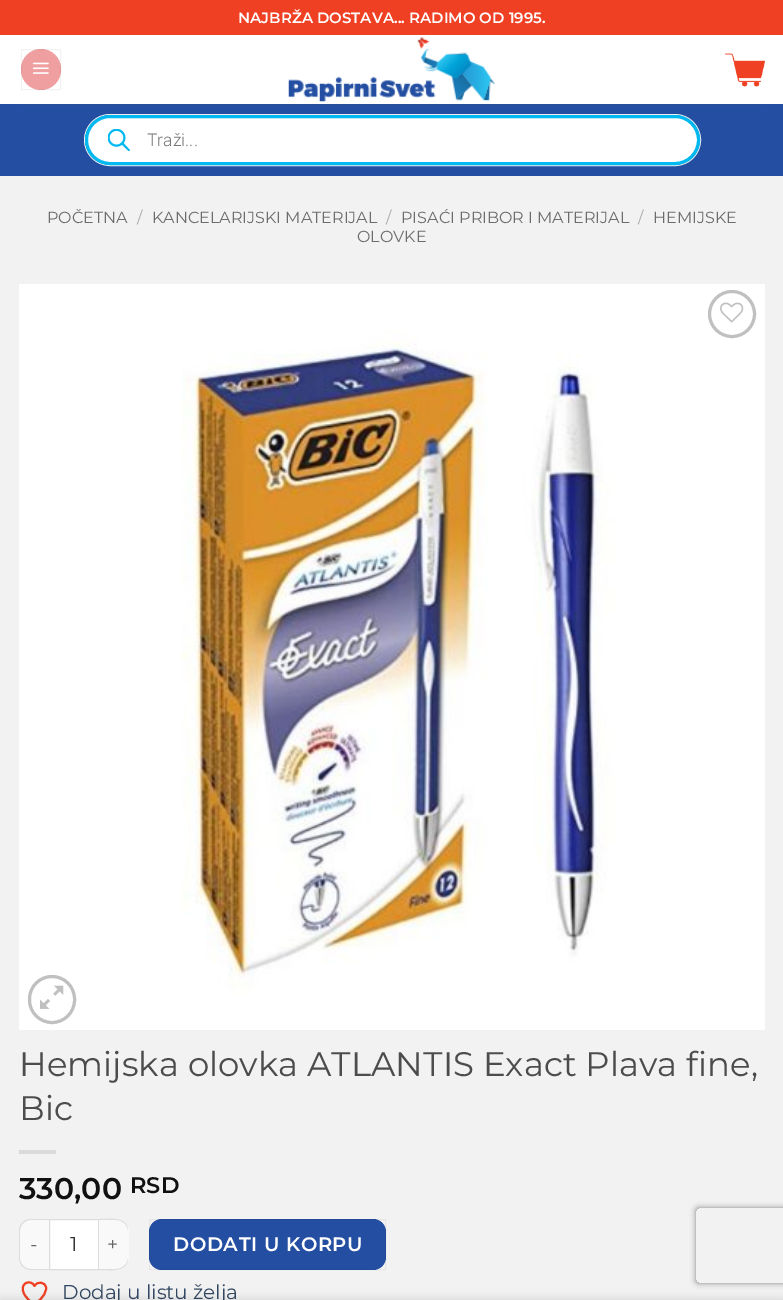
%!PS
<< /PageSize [783 1300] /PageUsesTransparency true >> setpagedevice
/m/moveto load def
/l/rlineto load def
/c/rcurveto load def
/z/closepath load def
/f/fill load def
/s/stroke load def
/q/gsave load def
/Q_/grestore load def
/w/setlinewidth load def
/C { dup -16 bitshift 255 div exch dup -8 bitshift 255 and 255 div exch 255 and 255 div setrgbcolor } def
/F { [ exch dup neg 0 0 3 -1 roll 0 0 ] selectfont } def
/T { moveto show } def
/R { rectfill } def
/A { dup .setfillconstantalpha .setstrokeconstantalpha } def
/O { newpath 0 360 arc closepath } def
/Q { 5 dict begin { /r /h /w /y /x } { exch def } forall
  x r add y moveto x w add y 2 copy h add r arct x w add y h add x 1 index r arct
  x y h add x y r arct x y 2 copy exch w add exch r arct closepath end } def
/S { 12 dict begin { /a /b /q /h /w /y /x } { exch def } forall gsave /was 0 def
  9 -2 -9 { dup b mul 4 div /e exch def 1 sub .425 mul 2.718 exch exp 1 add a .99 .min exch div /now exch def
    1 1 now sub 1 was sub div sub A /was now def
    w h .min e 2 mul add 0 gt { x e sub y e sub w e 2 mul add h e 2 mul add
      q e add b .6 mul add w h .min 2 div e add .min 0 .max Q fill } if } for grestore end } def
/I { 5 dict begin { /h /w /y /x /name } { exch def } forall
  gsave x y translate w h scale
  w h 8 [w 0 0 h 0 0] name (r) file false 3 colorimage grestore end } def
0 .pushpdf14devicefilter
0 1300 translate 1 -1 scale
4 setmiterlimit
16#F2F2F2 C
0 0 783 1300 R
16#EF4023 C
0 0 783 35 R
/Montserrat-SemiBold 15 F
16#FFFFFF C
(NAJBRŽA DOSTAVA... RADIMO OD 1995.) 238 23 T
0 35 783 69 R
16#EF9F9F C
21 49 40 41 20 Q f
0.05 A
16#000000 C
21.5 49.5 39 40 rectstroke
1 A
(1.rgb) 32 62 17 12 I
(2.rgb) 288 37 207 65 I
(3.rgb) 725 53 40 34 I
16#244EA1 C
0 104 783 72 R
16#2B509B C
19 104 746 1 R
16#EEEEEE C
84.5 114.5 616 51 25.5 Q s
16#FFFFFF C
86.5 116.5 612 47 23.5 Q q f Q_
16#00B9F1 C
3 w
s
(4.rgb) 108 129 22 22 I
/Roboto-Light 17.5 F
16#777777 C
(Trаži...) 147 146 T
/Montserrat-Regular 16 F
16#6C6C6C C
(POČETNA) 47 223 T
16#A9A9A9 C
(/) 137 223 T
16#6C6C6C C
(KANCELARIJSKI MATERIJAL) 152 223 T
16#A9A9A9 C
(/) 386 223 T
16#6C6C6C C
(PISAĆI PRIBOR I MATERIJAL) 401 223 T
16#A9A9A9 C
(/) 638 223 T
16#6C6C6C C
(HEMIJSKE) 653 223 T
(OLOVKE) 357 242 T
(5.rgb) 19 284 746 746 I
16#C0C0C0 C
732 314 22.5 O s
(6.rgb) 720 302 24 21 I
29.5 976.5 45 46 22.5 Q s
(7.rgb) 40 985 24 24 I
/Montserrat-Regular 34 F
16#4C4C4C C
(Hemijska olovka ATLANTIS Exact Plava fine,) 19 1076 T
(Bic) 19 1120 T
16#DADADA C
19 1150 37 4 R
/Montserrat-SemiBold 30 F
16#111111 C
(330,00) 19 1199 T
/Montserrat-SemiBold 22.5 F
(RSD) 130 1193 T
16#F9F9F9 C
32 1219 m 17 0 l 0 51 l -17 0 l -7 0 -13 -6 -13 -13 c 0 -25 l 0 -7 6 -13 13 -13 c z f
16#DDDDDD C
31 1219 m 18 0 l 0 51 l -18 0 l -7 0 -12 -6 -12 -12 c 0 -27 l 0 -7 5 -12 12 -12 c z 31 1220 m 18 0 l 0 49 l -18 0 l -6 0 -11 -5 -11 -11 c 0 -27 l 0 -6 5 -11 11 -11 c z eofill
/Montserrat-Regular 19.5 F
16#666666 C
30 1251 m .6 0 (-) ashow
16#FFFFFF C
49.5 1219.5 m 49 0 l 0 50 l -49 0 l z q f Q_
16#DDDDDD C
1 w
s
/Montserrat-Regular 20 F
16#333333 C
(1) 70 1251 T
16#F9F9F9 C
99 1219 m 17 0 l 7 0 13 6 13 13 c 0 25 l 0 7 -6 13 -13 13 c -17 0 l z f
16#DDDDDD C
99 1219 m 10 0 27 -3 29 10 c 0 31 l -2 13 -19 10 -29 10 c z 99 1220 m 17 0 l 6 0 12 5 12 11 c 0 27 l 0 6 -6 11 -12 11 c -17 0 l z eofill
/Montserrat-Regular 19.5 F
16#666666 C
107 1251 m .6 0 (+) ashow
16#244EA1 C
149 1219 237 51 13 Q f
0.05 A
16#000000 C
149.5 1219.5 236 50 rectstroke
/Montserrat-SemiBold 19.5 F
1 A
16#FFFFFF C
173 1251 m .6 0 (DODATI U KORPU) ashow
/Montserrat-Regular 20 F
16#334862 C
(Dodaj u listu želja) 62 1299 T
16#EF4023 C
2 w
1 setlinecap
1 setlinejoin
46 1288 m 0 -6 -9 -7.5 -11.5 -2 c -3.5 -7.5 -16.5 -3 -10 8.5 c 2 4 6 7.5 10 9.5 c 0 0 11.5 -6.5 11.5 -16 c z s
q
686 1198 m 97 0 l 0 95 l -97 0 l z 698.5 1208 m 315 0 l 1.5 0 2.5 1 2.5 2.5 c 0 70 l 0 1.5 -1 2.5 -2.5 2.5 c -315 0 l -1.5 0 -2.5 -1 -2.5 -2.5 c 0 -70 l 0 -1.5 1 -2.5 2.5 -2.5 c z eoclip newpath
16#808080 C
696 1208 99 75 2.5 3 1 S
Q_
16#000000 C
0 1300 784 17 0 5.5 .14 S
.poppdf14devicefilter showpage
